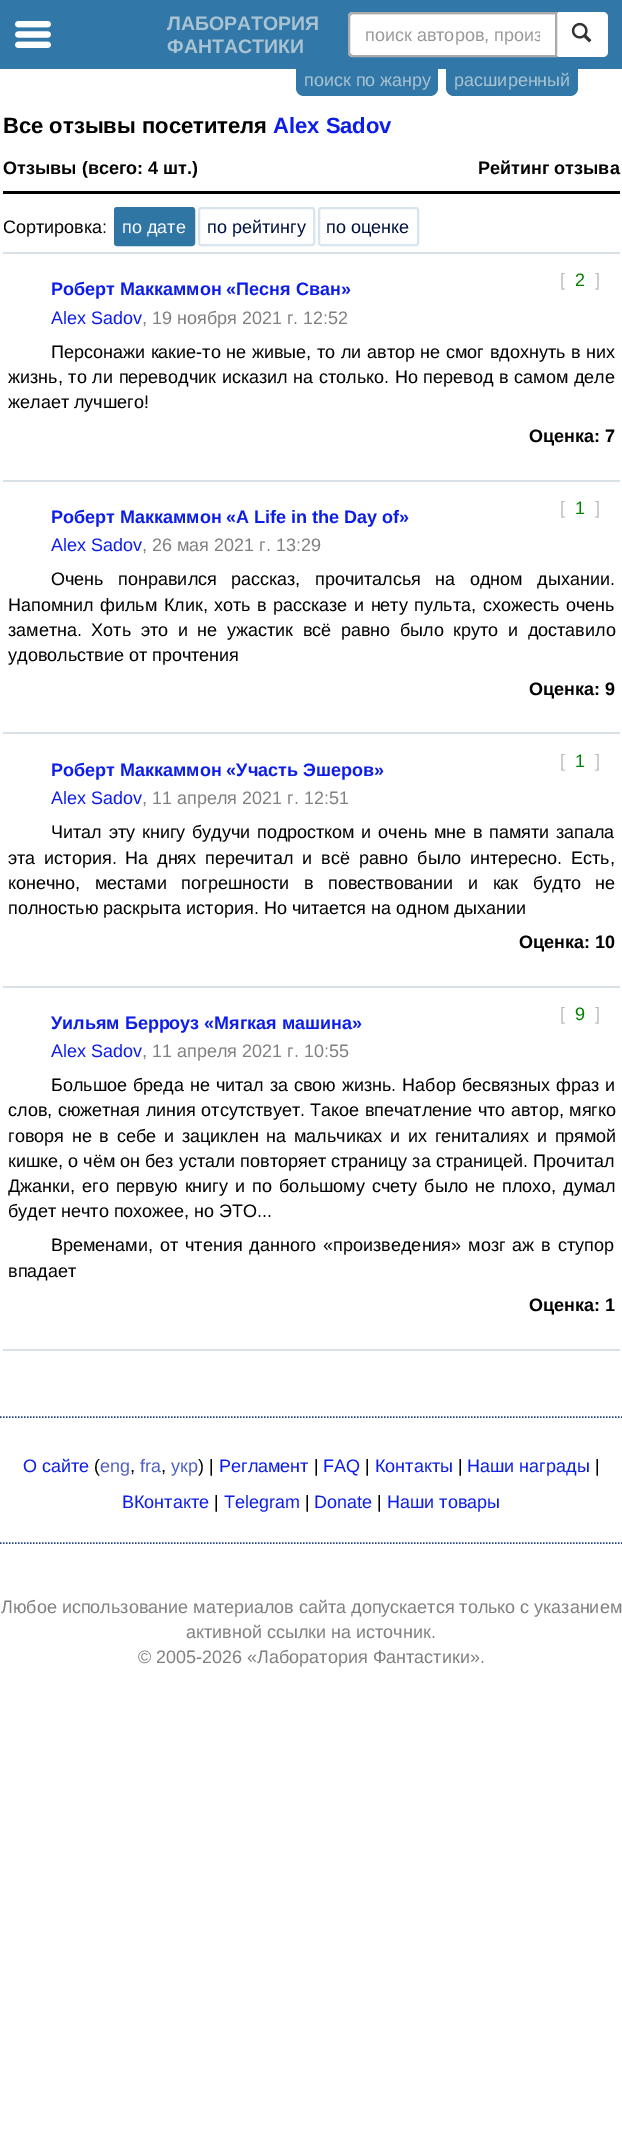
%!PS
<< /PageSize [622 2146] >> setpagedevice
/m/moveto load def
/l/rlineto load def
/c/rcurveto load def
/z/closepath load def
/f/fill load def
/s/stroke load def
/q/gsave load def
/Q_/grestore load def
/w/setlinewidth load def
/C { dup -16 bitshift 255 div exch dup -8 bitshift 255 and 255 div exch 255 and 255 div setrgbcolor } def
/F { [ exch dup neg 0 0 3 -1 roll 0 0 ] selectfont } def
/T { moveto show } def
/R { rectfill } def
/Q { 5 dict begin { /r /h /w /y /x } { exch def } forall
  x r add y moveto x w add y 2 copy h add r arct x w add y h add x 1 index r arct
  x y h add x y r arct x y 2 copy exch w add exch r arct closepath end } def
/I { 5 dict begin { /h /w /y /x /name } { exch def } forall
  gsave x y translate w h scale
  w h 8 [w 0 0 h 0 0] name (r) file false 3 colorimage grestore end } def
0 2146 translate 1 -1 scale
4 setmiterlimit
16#FFFFFF C
0 0 622 2146 R
16#3178A8 C
0 0 622 69 R
(1.rgb) 15 21 36 27 I
/LiberationSans-Bold 19.5 F
16#A9C3D3 C
(ЛАБОРАТОРИЯ) 167 30 T
(ФАНТАСТИКИ) 167 53 T
16#FFFFFF C
555 12 53 45 5 Q f
353 12 m 204 0 l 0 45 l -204 0 l -3 0 -5 -2 -5 -5 c 0 -35 l 0 -3 2 -5 5 -5 c z f
16#ECECEC C
352 15 m 203 0 l 0 -1 l -203 0 l -2 1 -2 2 -2 4 c 0 -2 1 -3 2 -3 c z f
16#AAAAAA C
2 w
353 13 m 203 0 l 0 43 l -203 0 l -2 0 -4 -2 -4 -4 c 0 -35 l 0 -2 2 -4 4 -4 c z s
q
365 24 175 21 rectclip
/LiberationSans-Regular 18 F
16#999999 C
(поиск авторов, произ) 365 41 T
Q_
(2.rgb) 571 22 21 21 I
16#3178A8 C
296 60 142 36 8 Q f
/LiberationSans-Regular 18 F
16#A9C3D3 C
(поиск по жанру) 304 86 T
16#3178A8 C
446 60 132 36 8 Q f
16#A9C3D3 C
(расширенный) 454 86 T
/LiberationSans-Bold 22 F
16#000000 C
(Все отзывы посетителя) 3 133 T
16#0C1DE9 C
(Alex Sadov) 273 133 T
/LiberationSans-Bold 18 F
16#000000 C
(Отзывы \(всего: 4 шт.\)) 3 174 T
(Рейтинг отзыва) 478 174 T
3 191 617 3 R
16#D8E1E6 C
3 252 617 2 R
/LiberationSans-Regular 18 F
16#000000 C
(Сортировка:) 3 233 T
16#3076A5 C
115 208 79 37 2 Q q f Q_
s
16#FAFAFF C
(по дате) 122 233 T
16#D8E4EE C
199 208 115 37 2 Q s
16#001040 C
(по рейтингу) 207 233 T
16#D8E4EE C
319 208 99 37 2 Q s
16#001040 C
(по оценке) 326 233 T
16#D8E1E6 C
3 480 617 2 R
/LiberationSans-Bold 18 F
16#0C1DE9 C
(Роберт Маккаммон «Песня Сван») 51 295 T
/LiberationSans-Regular 18 F
16#BBBBBB C
([) 560 286 T
16#008000 C
(2) 575 286 T
16#BBBBBB C
(]) 595 286 T
16#0C1DE9 C
(Alex Sadov) 51 324 T
16#808080 C
(, 19 ноября 2021 г. 12:52) 142 324 T
16#000000 C
51 358 m .6 0 32 (Персонажи какие-то не живые, то ли автор не смог вдохнуть в них) widthshow
8 383 m .75 0 32 (жизнь, то ли переводчик исказил на столько. Но перевод в самом деле) widthshow
(желает лучшего!) 8 408 T
/LiberationSans-Bold 18 F
(Оценка: 7) 529 442 T
16#D8E1E6 C
3 732 617 2 R
16#0C1DE9 C
(Роберт Маккаммон «A Life in the Day of») 51 523 T
/LiberationSans-Regular 18 F
16#BBBBBB C
([) 560 514 T
16#008000 C
(1) 575 514 T
16#BBBBBB C
(]) 595 514 T
16#0C1DE9 C
(Alex Sadov) 51 551 T
16#808080 C
(, 26 мая 2021 г. 13:29) 142 551 T
16#000000 C
51 585 m 9.5 0 32 (Очень понравился рассказ, прочиталсья на одном дыхании.) widthshow
8 611 m 1.5 0 32 (Напомнил фильм Клик, хоть в рассказе и нету пульта, схожесть очень) widthshow
8 636 m 4.6 0 32 (заметна. Хоть это и не ужастик всё равно было круто и доставило) widthshow
(удовольствие от прочтения) 8 661 T
/LiberationSans-Bold 18 F
(Оценка: 9) 529 695 T
16#D8E1E6 C
3 986 617 2 R
16#0C1DE9 C
(Роберт Маккаммон «Участь Эшеров») 51 776 T
/LiberationSans-Regular 18 F
16#BBBBBB C
([) 560 767 T
16#008000 C
(1) 575 767 T
16#BBBBBB C
(]) 595 767 T
16#0C1DE9 C
(Alex Sadov) 51 804 T
16#808080 C
(, 11 апреля 2021 г. 12:51) 142 804 T
16#000000 C
51 838 m 1.75 0 32 (Читал эту книгу будучи подростком и очень мне в памяти запала) widthshow
8 864 m 4 0 32 (эта история.) widthshow
125 864 m 4 0 32 (На днях перечитал и всё равно было интересно. Есть,) widthshow
8 889 m 9.5 0 32 (конечно, местами погрешности в повествовании и как будто не) widthshow
(полностью раскрыта история. Но читается на одном дыхании) 8 914 T
/LiberationSans-Bold 18 F
(Оценка: 10) 519 948 T
16#D8E1E6 C
3 1349 617 2 R
16#0C1DE9 C
(Уильям Берроуз «Мягкая машина») 51 1029 T
/LiberationSans-Regular 18 F
16#BBBBBB C
([) 560 1020 T
16#008000 C
(9) 575 1020 T
16#BBBBBB C
(]) 595 1020 T
16#0C1DE9 C
(Alex Sadov) 51 1057 T
16#808080 C
(, 11 апреля 2021 г. 10:55) 142 1057 T
16#000000 C
51 1091 m .9 0 32 (Большое бреда не читал за свою жизнь. Набор бесвязных фраз и) widthshow
8 1116 m .5 0 32 (слов, сюжетная линия отсутствует. Такое впечатление что автор, мягко) widthshow
8 1142 m 2.75 0 32 (говоря не в себе и зациклен на мальчиках и их гениталиях и прямой) widthshow
(кишке, о чём он без устали повторяет страницу за страницей. Прочитал) 8 1167 T
8 1192 m 2 0 32 (Джанки, его первую книгу и по большому счету было не плохо, думал) widthshow
(будет нечто похожее, но ЭТО...) 8 1217 T
51 1251 m 2 0 32 (Временами, от чтения данного «произведения» мозг аж в ступор) widthshow
(впадает) 8 1277 T
/LiberationSans-Bold 18 F
(Оценка: 1) 529 1311 T
16#204080 C
1.5 w
[1.5 1.5] 0 setdash
0 1417 m 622.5 0 l s
0 1543 m 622.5 0 l s
/LiberationSans-Regular 18 F
16#0C1DE9 C
(О сайте) 23 1472 T
16#000000 C
(\() 94 1472 T
16#5060C0 C
(eng) 100 1472 T
16#000000 C
(,) 130 1472 T
16#5060C0 C
(fra) 140 1472 T
16#000000 C
(,) 161 1472 T
16#5060C0 C
(укр) 171 1472 T
16#000000 C
(\) |) 198 1472 T
16#0C1DE9 C
(Регламент) 219 1472 T
16#000000 C
(|) 314 1472 T
16#0C1DE9 C
(FAQ) 323 1472 T
16#000000 C
(|) 365 1472 T
16#0C1DE9 C
(Контакты) 375 1472 T
16#000000 C
(|) 458 1472 T
16#0C1DE9 C
(Наши награды) 467 1472 T
16#000000 C
(|) 595 1472 T
16#0C1DE9 C
(ВКонтакте) 122 1508 T
16#000000 C
(|) 214 1508 T
16#0C1DE9 C
(Telegram) 224 1508 T
16#000000 C
(|) 305 1508 T
16#0C1DE9 C
(Donate) 314 1508 T
16#000000 C
(|) 377 1508 T
16#0C1DE9 C
(Наши товары) 387 1508 T
16#808080 C
(Любое использование материалов сайта допускается только с указанием) 1 1613 T
(активной ссылки на источник.) 186 1638 T
(© 2005-2026 «Лаборатория Фантастики».) 138 1663 T
showpage
